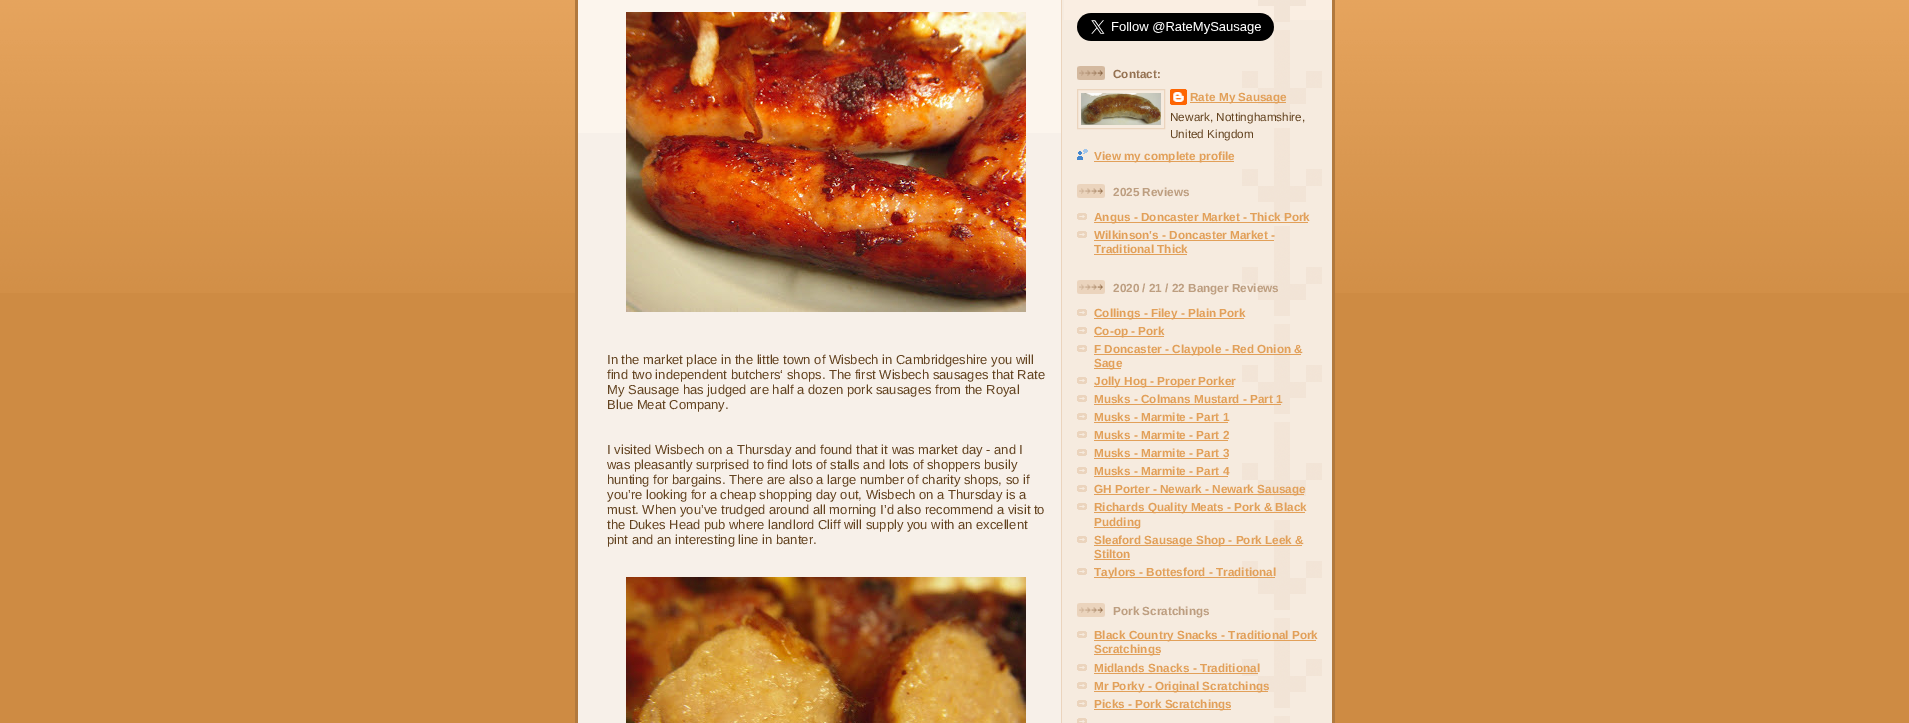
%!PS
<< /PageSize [1909 723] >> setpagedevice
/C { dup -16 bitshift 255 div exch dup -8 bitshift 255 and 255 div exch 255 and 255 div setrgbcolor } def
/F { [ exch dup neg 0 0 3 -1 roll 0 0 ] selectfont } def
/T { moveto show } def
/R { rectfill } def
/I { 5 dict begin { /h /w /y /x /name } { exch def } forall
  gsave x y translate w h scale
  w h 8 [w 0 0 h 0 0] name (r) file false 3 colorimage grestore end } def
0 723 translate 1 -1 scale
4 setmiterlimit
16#CE8B43 C
0 0 1909 723 R
(1.rgb) 0 0 1909 293 I
(2.rgb) 575 0 760 723 I
16#FCF5ED C
578 0 483 133 R
(3.rgb) 626 12 400 300 I
/LiberationSans-Regular 13 F
16#634320 C
(In the market place in the little town of Wisbech in Cambridgeshire you will) 607 364 T
(find two independent butchers‘ shops. The first Wisbech sausages that Rate) 607 379 T
(My Sausage has judged are half a dozen pork sausages from the Royal) 607 394 T
(Blue Meat Company.) 607 409 T
(I visited Wisbech on a Thursday and found that it was market day - and I) 607 454 T
(was pleasantly surprised to find lots of stalls and lots of shoppers busily) 607 469 T
(hunting for bargains. There are also a large number of charity shops, so if) 607 484 T
(you’re looking for a cheap shopping day out, Wisbech on a Thursday is a) 607 499 T
(must. When you’ve trudged around all morning I’d also recommend a visit to) 607 514 T
(the Dukes Head pub where landlord Cliff will supply you with an excellent) 607 529 T
(pint and an interesting line in banter.) 607 544 T
(4.rgb) 626 577 400 146 I
16#FAEEE2 C
1064 0 268 20 R
(5.rgb) 1242 0 80 723 I
(6.rgb) 1077 13 197 28 I
(7.rgb) 1077 66 28 14 I
/LiberationSans-Bold 11.75 F
16#957252 C
(Contact:) 1113 78 T
16#EBD4BD C
1077.5 89.5 87 39 rectstroke
(8.rgb) 1081 93 80 32 I
(9.rgb) 1170 89 17 16 I
16#E2A059 C
1190 102 96 1 R
(Rate My Sausage) 1190 101 T
/LiberationSans-Regular 11.75 F
16#634320 C
(Newark, Nottinghamshire,) 1170 121 T
(United Kingdom) 1170 138 T
(10.rgb) 1077 149 11 11 I
16#E2A059 C
1094 161 140 1 R
/LiberationSans-Bold 11.75 F
(View my complete profile) 1094 160 T
(11.rgb) 1077 184 28 14 I
16#BD9E80 C
(2025 Reviews) 1113 196 T
(12.rgb) 1077 213 10 7 I
16#E2A059 C
1094 222 214 1 R
(Angus - Doncaster Market - Thick Pork) 1094 221 T
(12.rgb) 1077 231 10 7 I
(Wilkinson's - Doncaster Market -) 1094 239 T
1094 240 180 1 R
(Traditional Thick) 1094 253 T
1094 254 93 1 R
(11.rgb) 1077 280 28 14 I
16#BD9E80 C
(2020 / 21 / 22 Banger Reviews) 1113 292 T
(12.rgb) 1077 309 10 7 I
16#E2A059 C
1094 318 150 1 R
(Collings - Filey - Plain Pork) 1094 317 T
(12.rgb) 1077 327 10 7 I
1094 336 70 1 R
(Co-op - Pork) 1094 335 T
(12.rgb) 1077 345 10 7 I
1094 354 207 1 R
(F Doncaster - Claypole - Red Onion &) 1094 353 T
1094 368 27 1 R
(Sage) 1094 367 T
(12.rgb) 1077 377 10 7 I
1094 386 140 1 R
(Jolly Hog - Proper Porker) 1094 385 T
(12.rgb) 1077 395 10 7 I
(Musks - Colmans Mustard - Part 1) 1094 403 T
1094 404 187 1 R
(12.rgb) 1077 413 10 7 I
(Musks - Marmite - Part 1) 1094 421 T
1094 422 134 1 R
(12.rgb) 1077 431 10 7 I
(Musks - Marmite - Part 2) 1094 439 T
1094 440 134 1 R
(12.rgb) 1077 449 10 7 I
(Musks - Marmite - Part 3) 1094 457 T
1094 458 134 1 R
(12.rgb) 1077 467 10 7 I
(Musks - Marmite - Part 4) 1094 475 T
1094 476 134 1 R
(12.rgb) 1077 485 10 7 I
1094 494 210 1 R
(GH Porter - Newark - Newark Sausage) 1094 493 T
(12.rgb) 1077 503 10 7 I
1094 512 211 1 R
(Richards Quality Meats - Pork & Black) 1094 511 T
1094 527 46 1 R
(Pudding) 1094 526 T
(12.rgb) 1077 536 10 7 I
1094 545 208 1 R
(Sleaford Sausage Shop - Pork Leek &) 1094 544 T
(Stilton) 1094 558 T
1094 559 36 1 R
(12.rgb) 1077 568 10 7 I
1094 577 181 1 R
(Taylors - Bottesford - Traditional) 1094 576 T
(11.rgb) 1077 603 28 14 I
16#BD9E80 C
(Pork Scratchings) 1113 615 T
(12.rgb) 1077 631 10 7 I
16#E2A059 C
1094 640 222 1 R
(Black Country Snacks - Traditional Pork) 1094 639 T
1094 654 66 1 R
(Scratchings) 1094 653 T
(12.rgb) 1077 664 10 7 I
(Midlands Snacks - Traditional) 1094 672 T
1094 673 164 1 R
(12.rgb) 1077 682 10 7 I
1094 691 174 1 R
(Mr Porky - Original Scratchings) 1094 690 T
(12.rgb) 1077 700 10 7 I
1094 709 137 1 R
(Picks - Pork Scratchings) 1094 708 T
(13.rgb) 1077 718 10 5 I
showpage
